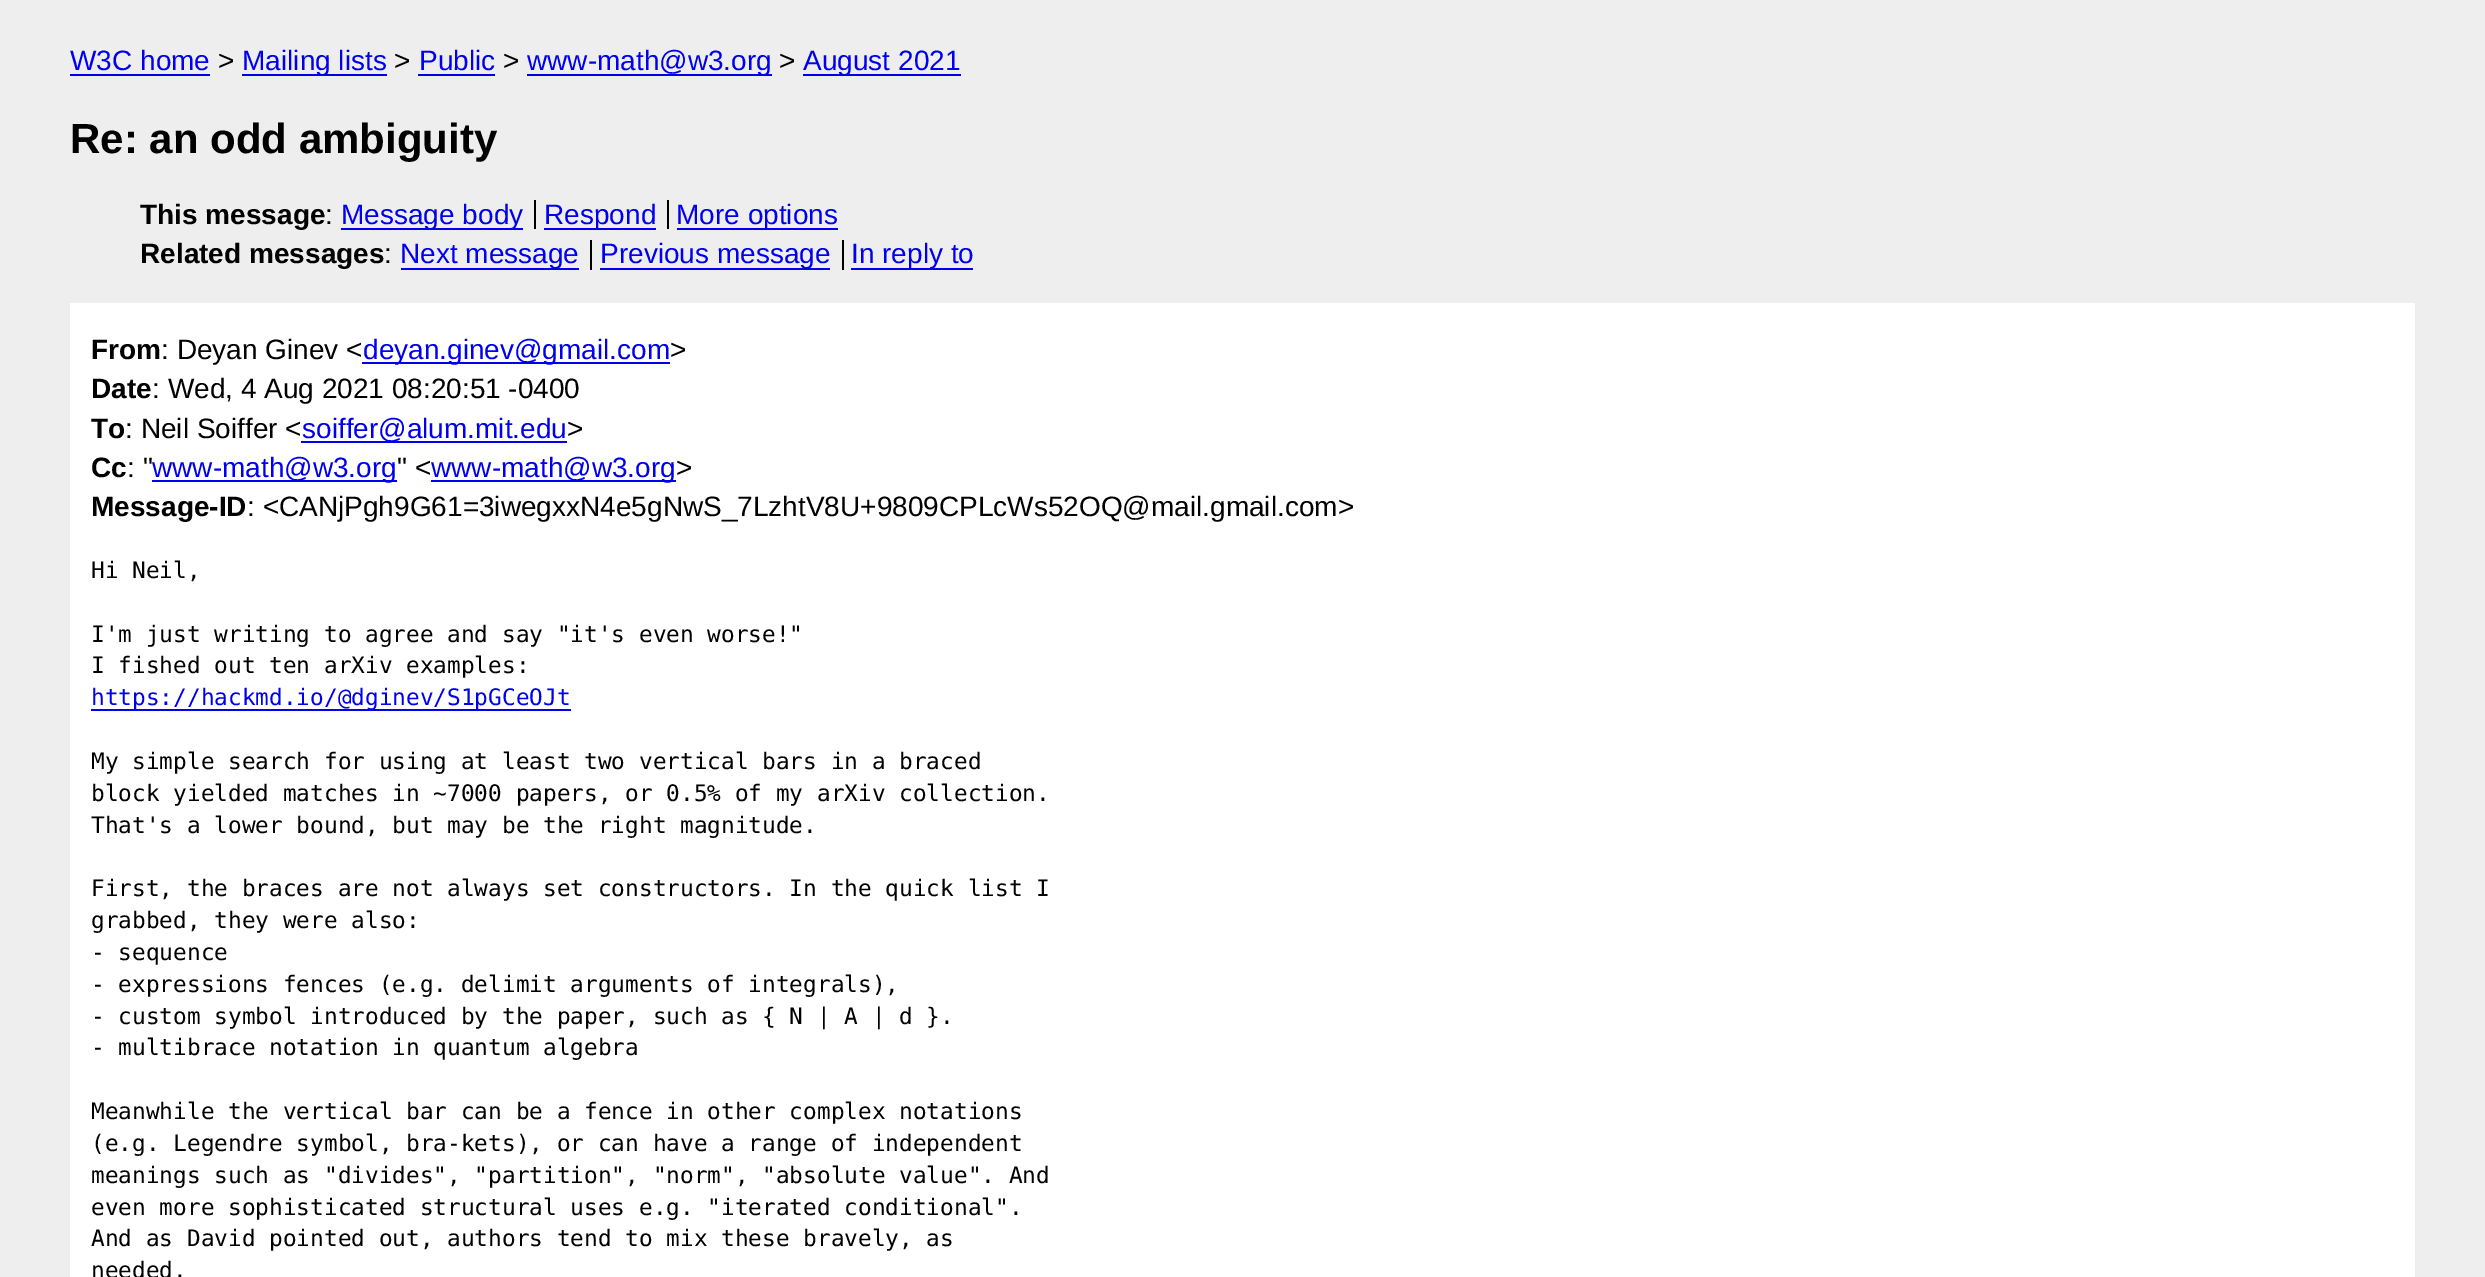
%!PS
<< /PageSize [2485 1277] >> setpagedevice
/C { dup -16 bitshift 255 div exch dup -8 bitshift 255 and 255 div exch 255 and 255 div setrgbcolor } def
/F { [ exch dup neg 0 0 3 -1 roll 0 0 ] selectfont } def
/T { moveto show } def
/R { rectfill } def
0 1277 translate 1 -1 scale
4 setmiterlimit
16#EEEEEE C
0 0 2485 1277 R
/LiberationSans-Regular 28 F
16#0000EE C
(W3C home) 70 70 T
70 74 140 2 R
16#000000 C
(>) 218 70 T
16#0000EE C
242 74 145 2 R
(Mailing lists) 242 70 T
16#000000 C
(>) 394 70 T
16#0000EE C
(Public) 419 70 T
418 74 77 2 R
16#000000 C
(>) 503 70 T
16#0000EE C
527 74 245 2 R
(www-math@w3.org) 527 70 T
16#000000 C
(>) 779 70 T
16#0000EE C
803 74 158 2 R
(August 2021) 803 70 T
/LiberationSans-Bold 42 F
16#000000 C
(Re: an odd ambiguity) 70 153 T
/LiberationSans-Bold 28 F
(This message) 140 224 T
/LiberationSans-Regular 28 F
(:) 325 224 T
16#0000EE C
341 228 182 2 R
(Message body) 341 224 T
544 228 112 2 R
(Respond) 544 224 T
16#000000 C
534 200 2 29 R
16#0000EE C
677 228 161 2 R
(More options) 676 224 T
16#000000 C
667 200 2 29 R
/LiberationSans-Bold 28 F
(Related messages) 140 263 T
/LiberationSans-Regular 28 F
(:) 384 263 T
16#0000EE C
401 268 178 2 R
(Next message) 400 263 T
600 268 230 2 R
(Previous message) 600 263 T
16#000000 C
590 240 2 30 R
16#0000EE C
851 268 122 2 R
(In reply to) 851 263 T
16#000000 C
842 240 2 30 R
16#FFFFFF C
70 303 2345 974 R
/LiberationSans-Bold 28 F
16#000000 C
(From) 91 359 T
/LiberationSans-Regular 28 F
(: Deyan Ginev <) 161 359 T
16#0000EE C
362 362 308 2 R
(deyan.ginev@gmail.com) 363 359 T
16#000000 C
(>) 670 359 T
/LiberationSans-Bold 28 F
(Date) 91 398 T
/LiberationSans-Regular 28 F
(: Wed, 4 Aug 2021 08:20:51 -0400) 152 398 T
/LiberationSans-Bold 28 F
(To) 91 438 T
/LiberationSans-Regular 28 F
(: Neil Soiffer <) 125 438 T
16#0000EE C
301 441 266 2 R
(soiffer@alum.mit.edu) 302 438 T
16#000000 C
(>) 567 438 T
/LiberationSans-Bold 28 F
(Cc) 91 477 T
/LiberationSans-Regular 28 F
(: ") 127 477 T
16#0000EE C
152 480 245 2 R
(www-math@w3.org) 152 477 T
16#000000 C
(" <) 397 477 T
16#0000EE C
431 480 245 2 R
(www-math@w3.org) 431 477 T
16#000000 C
(>) 676 477 T
/LiberationSans-Bold 28 F
(Message-ID) 91 516 T
/LiberationSans-Regular 28 F
(: <CANjPgh9G61=3iwegxxN4e5gNwS_7LzhtV8U+9809CPLcWs52OQ@mail.gmail.com>) 247 516 T
/DejaVuSansMono-Regular 22.75 F
(Hi Neil,) 91 578 T
(I'm just writing to agree and say "it's even worse!") 91 642 T
(I fished out ten arXiv examples:) 91 673 T
16#0000EE C
91 709 480 2 R
(https://hackmd.io/@dginev/S1pGCeOJt) 91 705 T
16#000000 C
(My simple search for using at least two vertical bars in a braced) 91 769 T
(block yielded matches in ~7000 papers, or 0.5% of my arXiv collection.) 91 801 T
(That's a lower bound, but may be the right magnitude.) 91 833 T
(First, the braces are not always set constructors. In the quick list I) 91 896 T
(grabbed, they were also:) 91 928 T
(- sequence) 91 960 T
(- expressions fences \(e.g. delimit arguments of integrals\),) 91 992 T
(- custom symbol introduced by the paper, such as { N | A | d }.) 91 1024 T
(- multibrace notation in quantum algebra) 91 1055 T
(Meanwhile the vertical bar can be a fence in other complex notations) 91 1119 T
(\(e.g. Legendre symbol, bra-kets\), or can have a range of independent) 91 1151 T
(meanings such as "divides", "partition", "norm", "absolute value". And) 91 1183 T
(even more sophisticated structural uses e.g. "iterated conditional".) 91 1215 T
(And as David pointed out, authors tend to mix these bravely, as) 91 1246 T
(needed.) 91 1278 T
showpage
